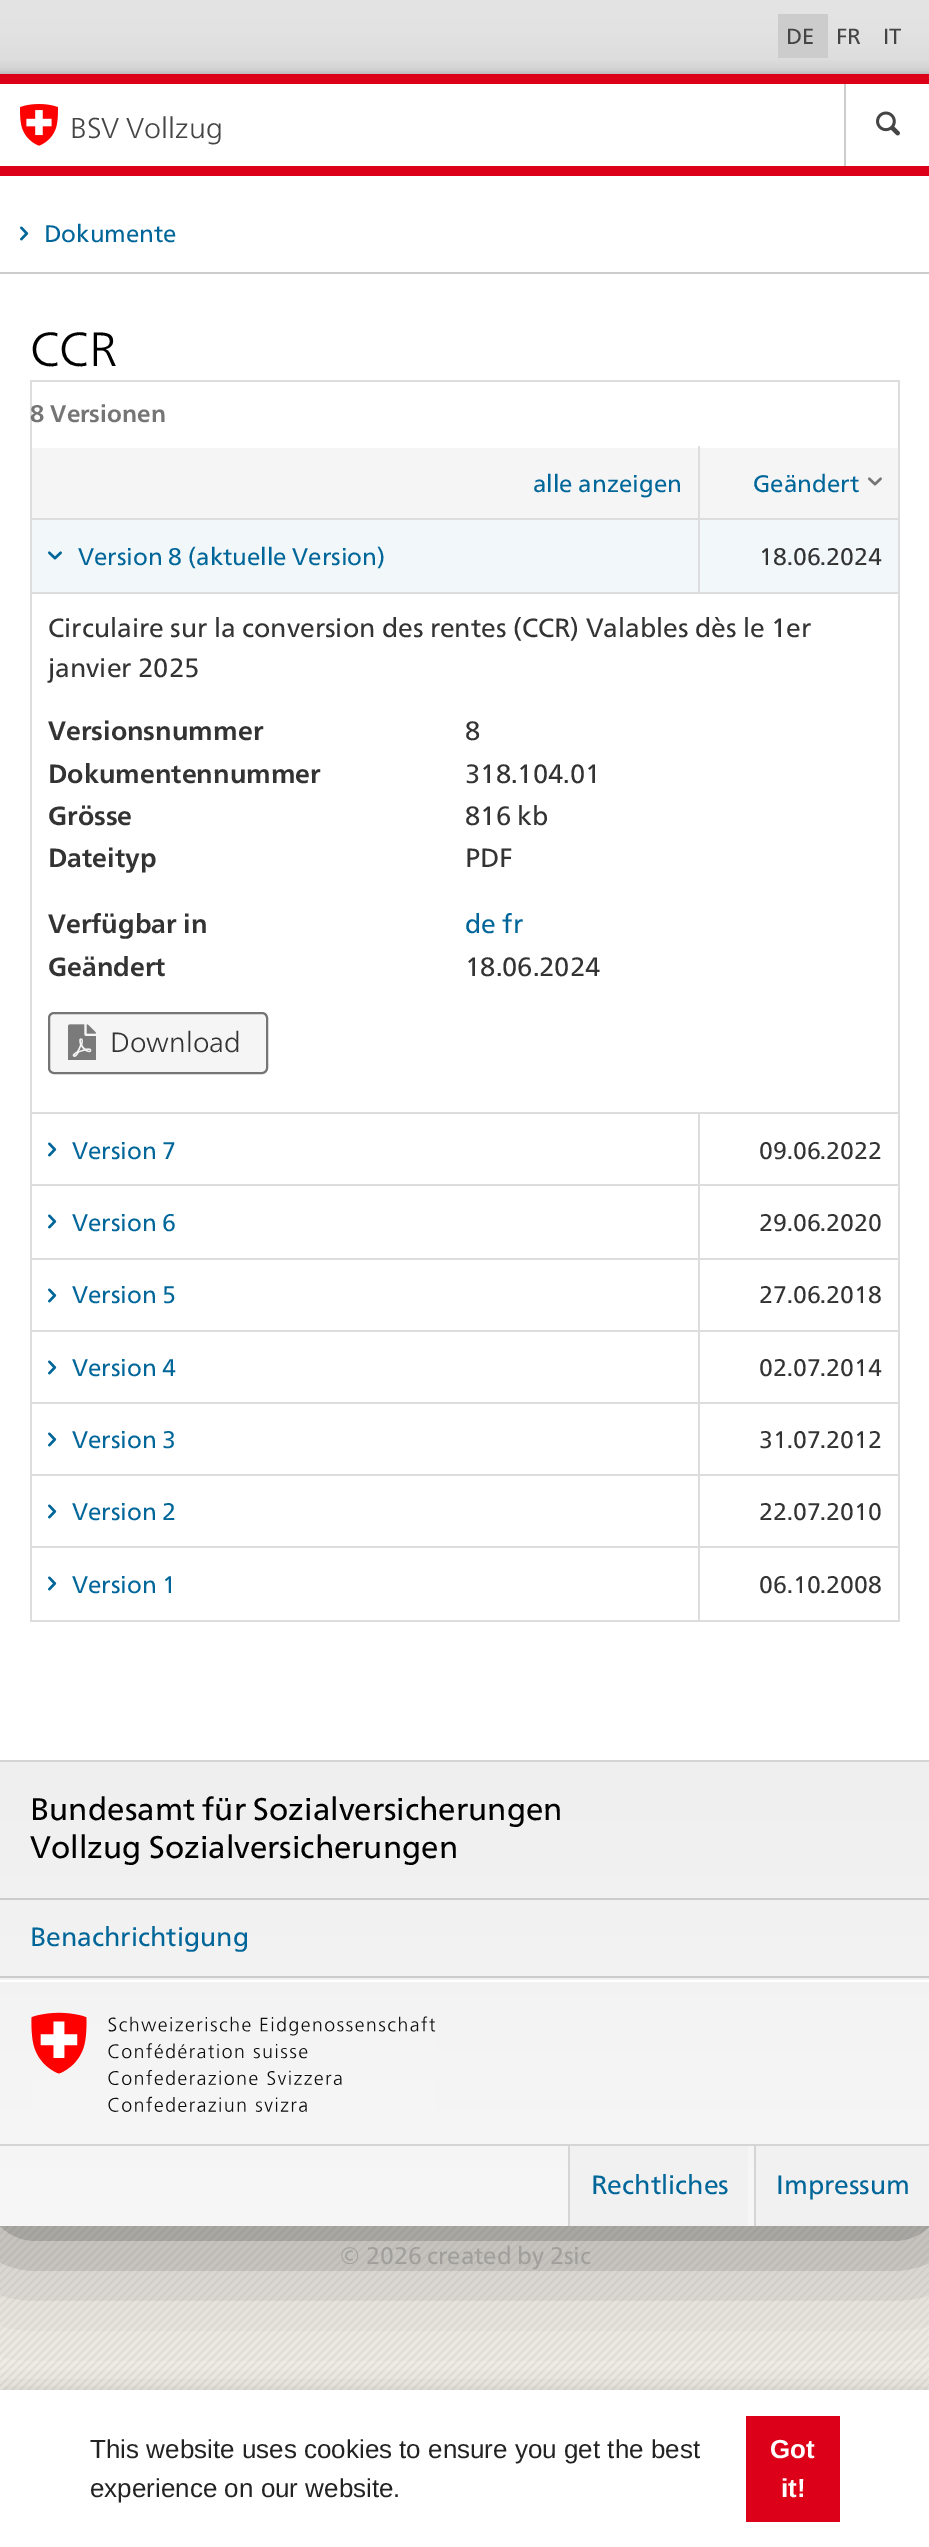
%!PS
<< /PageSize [929 2547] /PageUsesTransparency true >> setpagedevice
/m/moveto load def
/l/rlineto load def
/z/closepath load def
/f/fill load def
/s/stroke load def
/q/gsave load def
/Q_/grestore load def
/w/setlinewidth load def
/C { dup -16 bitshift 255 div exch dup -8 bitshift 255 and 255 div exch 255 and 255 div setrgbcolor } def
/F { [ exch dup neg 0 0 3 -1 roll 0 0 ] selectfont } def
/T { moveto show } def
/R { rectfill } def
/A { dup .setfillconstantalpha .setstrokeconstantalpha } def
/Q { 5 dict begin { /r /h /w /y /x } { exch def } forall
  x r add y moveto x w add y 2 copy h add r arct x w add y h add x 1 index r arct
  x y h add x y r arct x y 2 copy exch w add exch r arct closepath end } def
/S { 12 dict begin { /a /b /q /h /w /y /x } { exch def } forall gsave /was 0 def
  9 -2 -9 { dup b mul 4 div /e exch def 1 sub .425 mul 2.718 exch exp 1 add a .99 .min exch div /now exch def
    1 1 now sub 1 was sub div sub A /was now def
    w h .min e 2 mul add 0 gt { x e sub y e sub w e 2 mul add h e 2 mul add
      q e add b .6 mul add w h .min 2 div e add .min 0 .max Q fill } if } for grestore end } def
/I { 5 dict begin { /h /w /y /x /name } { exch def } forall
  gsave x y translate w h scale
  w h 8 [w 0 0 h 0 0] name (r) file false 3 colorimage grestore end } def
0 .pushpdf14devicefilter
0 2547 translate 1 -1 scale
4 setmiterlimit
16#FFFFFF C
0 0 929 2547 R
(1.rgb) 0 2226 929 164 I
16#000000 C
0 0 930 2226 0 60 .6 S
16#FFFFFF C
0 84 929 1676 R
q 0 0 m 929 0 l 0 74 l -929 0 l z clip newpath
<< /ShadingType 2 /ColorSpace /DeviceRGB /Coords [465 0 465 74] /Extend [true true] /Function << /FunctionType 3 /Domain [0 1] /Functions [<< /FunctionType 2 /Domain [0 1] /C0 [.894 .894 .894] /C1 [.886 .886 .886] /N 1 >> << /FunctionType 2 /Domain [0 1] /C0 [.886 .886 .886] /C1 [.867 .867 .867] /N 1 >> << /FunctionType 2 /Domain [0 1] /C0 [.867 .867 .867] /C1 [.835 .835 .835] /N 1 >> << /FunctionType 2 /Domain [0 1] /C0 [.835 .835 .835] /C1 [.812 .812 .812] /N 1 >> << /FunctionType 2 /Domain [0 1] /C0 [.812 .812 .812] /C1 [.745 .745 .745] /N 1 >> << /FunctionType 2 /Domain [0 1] /C0 [.745 .745 .745] /C1 [.745 .745 .745] /N 1 >>] /Bounds [.39 .79 .91 .95 .99] /Encode [0 1 0 1 0 1 0 1 0 1 0 1] >> >> shfill Q_
16#CCCCCC C
778 14 50 44 R
/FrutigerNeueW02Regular-Regular 22 F
16#454545 C
(DE) 786 44 T
(FR) 836 44 T
(IT) 883 44 T
16#DC0018 C
0 74 929 10 R
(2.rgb) 20 104 38 42 I
/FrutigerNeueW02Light-Light 28.75 F
16#454545 C
(BSV Vollzug) 70 138 T
16#CCCCCC C
844 84 2 82 R
(3.rgb) 876 111 24 25 I
16#DC0018 C
0 166 929 10 R
16#CCCCCC C
0 272 929 2 R
(4.rgb) 20 226 9 15 I
/FrutigerNeueW02Regular-Regular 24 F
16#006699 C
(Dokumente) 44 242 T
/FrutigerNeueW02Light-Light 48 F
16#000000 C
(CCR) 30 366 T
16#DDDDDD C
30 380 870 2 R
898 380 2 1242 R
30 1620 870 2 R
30 380 2 1242 R
/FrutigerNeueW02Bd-Bold 24 F
16#757575 C
(8 Versionen) 30 422 T
16#F5F5F5 C
32 448 666 70 R
/FrutigerNeueW02Regular-Regular 24 F
16#006699 C
(alle anzeigen) 533 492 T
16#F5F5F5 C
700 448 198 70 R
16#DDDDDD C
698 518 202 2 R
30 592 870 2 R
698 518 2 76 R
30 518 670 2 R
698 446 2 74 R
16#006699 C
(Geändert) 753 492 T
(5.rgb) 868 477 14 9 I
16#F2F7F9 C
32 520 666 72 R
(6.rgb) 48 551 14 9 I
16#006699 C
(Version 8 \(aktuelle Version\)) 78 565 T
16#F2F7F9 C
700 520 198 72 R
16#333333 C
(18.06.2024) 759 565 T
/FrutigerNeueW02Regular-Regular 26.4 F
(Circulaire sur la conversion des rentes \(CCR\) Valables dès le 1er) 48 637 T
(janvier 2025) 48 677 T
/FrutigerNeueW02Bd-Bold 26.4 F
(Versionsnummer) 48 740 T
/FrutigerNeueW02Regular-Regular 26.4 F
(8) 465 740 T
/FrutigerNeueW02Bd-Bold 26.4 F
(Dokumentennummer) 48 783 T
/FrutigerNeueW02Regular-Regular 26.4 F
(318.104.01) 465 783 T
/FrutigerNeueW02Bd-Bold 26.4 F
(Grösse) 48 825 T
/FrutigerNeueW02Regular-Regular 26.4 F
(816 kb) 465 825 T
/FrutigerNeueW02Bd-Bold 26.4 F
(Dateityp) 48 867 T
/FrutigerNeueW02Regular-Regular 26.4 F
(PDF) 465 867 T
/FrutigerNeueW02Bd-Bold 26.4 F
(Verfügbar in) 48 933 T
/FrutigerNeueW02Regular-Regular 26.4 F
16#006699 C
(de fr) 465 933 T
/FrutigerNeueW02Bd-Bold 26.4 F
16#333333 C
(Geändert) 48 976 T
/FrutigerNeueW02Regular-Regular 26.4 F
(18.06.2024) 465 976 T
16#F5F5F5 C
49 1013 218 60 5 Q q f Q_
16#757575 C
2 w
s
(7.rgb) 68 1024 28 36 I
/FrutigerNeueW02Light-Light 28 F
16#333333 C
(Download) 110 1052 T
16#DDDDDD C
698 1112 202 2 R
698 1184 202 2 R
698 1258 202 2 R
698 1330 202 2 R
698 1402 202 2 R
698 1474 202 2 R
698 1546 202 2 R
698 1546 2 76 R
30 1546 670 2 R
698 1474 2 74 R
30 1474 670 2 R
698 1402 2 74 R
30 1402 670 2 R
698 1330 2 74 R
30 1330 670 2 R
698 1258 2 74 R
30 1258 670 2 R
698 1184 2 76 R
30 1184 670 2 R
698 1112 2 74 R
30 1112 670 2 R
(4.rgb) 48 1142 9 15 I
/FrutigerNeueW02Regular-Regular 24 F
16#006699 C
(Version 7) 72 1159 T
16#333333 C
(09.06.2022) 759 1159 T
(4.rgb) 48 1214 9 15 I
16#006699 C
(Version 6) 72 1231 T
16#333333 C
(29.06.2020) 759 1231 T
(4.rgb) 48 1288 9 15 I
16#006699 C
(Version 5) 72 1303 T
16#333333 C
(27.06.2018) 759 1303 T
(4.rgb) 48 1360 9 15 I
16#006699 C
(Version 4) 72 1376 T
16#333333 C
(02.07.2014) 759 1376 T
(4.rgb) 48 1432 9 15 I
16#006699 C
(Version 3) 72 1448 T
16#333333 C
(31.07.2012) 759 1448 T
(4.rgb) 48 1504 9 15 I
16#006699 C
(Version 2) 72 1520 T
16#333333 C
(22.07.2010) 759 1520 T
(4.rgb) 48 1576 9 15 I
16#006699 C
(Version 1) 72 1593 T
16#333333 C
(06.10.2008) 759 1593 T
q 0 1762 m 929 0 l 0 464 l -929 0 l z clip newpath
<< /ShadingType 2 /ColorSpace /DeviceRGB /Coords [465 1762 465 2226] /Extend [true true] /Function << /FunctionType 2 /Domain [0 1] /C0 [.937 .937 .937] /C1 [.969 .969 .969] /N 1 >> >> shfill Q_
16#D5D5D5 C
0 1760 929 2 R
/FrutigerNeueW02Regular-Regular 31.25 F
16#000000 C
(Bundesamt für Sozialversicherungen) 30 1820 T
(Vollzug Sozialversicherungen) 30 1858 T
16#CCCCCC C
0 1976 929 2 R
0 1898 929 2 R
/FrutigerNeueW02Regular-Regular 26.4 F
16#006699 C
(Benachrichtigung) 30 1946 T
16#FFFFFF C
0 1980 929 2 R
(8.rgb) 31 2012 405 100 I
16#D5D5D5 C
0 2144 929 2 R
16#F1F1F1 C
570 2146 178 80 R
16#D5D5D5 C
568 2146 2 80 R
16#006699 C
(Rechtliches) 591 2194 T
16#F1F1F1 C
756 2146 173 80 R
16#D5D5D5 C
754 2146 2 80 R
16#006699 C
(Impressum) 776 2194 T
/FrutigerNeueW02Regular-Regular 24 F
16#A09F9C C
(© 2026) 339 2264 T
(created by 2sic) 427 2264 T
16#000000 C
0 2390 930 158 0 15 .15 S
16#FFFFFF C
0 2390 929 157 R
/LiberationSans-Regular 26 F
16#222222 C
(This website uses cookies to ensure you get the best) 90 2458 T
(experience on our website.) 90 2497 T
16#DC0018 C
746 2416 94 106 R
/LiberationSans-Bold 26 F
16#FFFFFF C
(Got) 770 2458 T
(it!) 781 2497 T
.poppdf14devicefilter showpage
